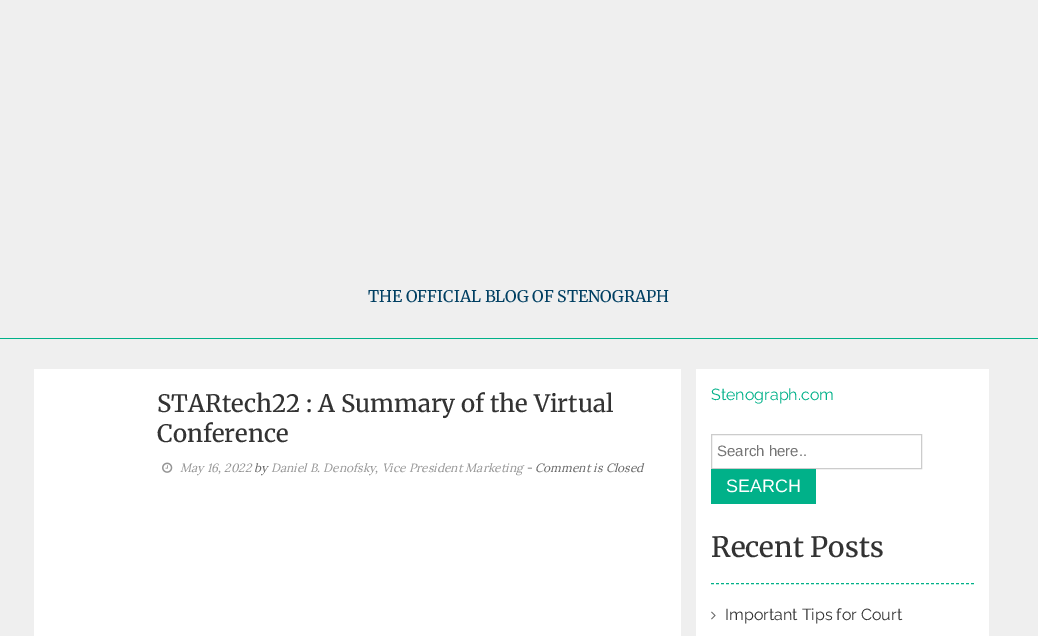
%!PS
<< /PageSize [1038 636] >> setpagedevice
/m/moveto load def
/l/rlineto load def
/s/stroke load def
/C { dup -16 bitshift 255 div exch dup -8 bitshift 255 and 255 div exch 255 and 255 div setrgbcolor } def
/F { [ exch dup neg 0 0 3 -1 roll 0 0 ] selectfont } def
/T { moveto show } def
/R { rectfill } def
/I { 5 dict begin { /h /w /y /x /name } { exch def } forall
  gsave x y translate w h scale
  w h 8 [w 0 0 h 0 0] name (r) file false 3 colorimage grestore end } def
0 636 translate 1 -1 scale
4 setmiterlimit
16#EFEFEF C
0 0 1038 636 R
/Merriweather-Regular 16 F
16#003F62 C
(THE OFFICIAL BLOG OF STENOGRAPH) 368 302 T
16#00B189 C
0 338 1038 1 R
16#FFFFFF C
34 369 647 267 R
/Merriweather-Medium 24 F
16#333333 C
(STARtech22 : A Summary of the Virtual) 157 412 T
(Conference) 157 442 T
(1.rgb) 162 462 11 11 I
/Lora-Italic 12 F
16#959595 C
(May 16, 2022) 180 472 T
16#666666 C
(by) 254 472 T
16#959595 C
(Daniel B. Denofsky, Vice President Marketing) 271 472 T
16#666666 C
(- Comment is Closed) 526 472 T
16#FFFFFF C
696 369 293 267 R
/Raleway-Regular 16 F
16#00B189 C
(Stenograph.com) 711 400 T
16#CCCCCC C
711.5 434.5 210 34 rectstroke
/LiberationSans-Regular 15 F
16#757575 C
(Search here..) 717 456 T
16#00B189 C
711 469 105 35 R
/LiberationSans-Regular 18 F
16#FFFFFF C
(SEARCH) 726 492 T
16#00B189 C
[3 2] 0 setdash
711 583.5 m 263 0 l s
/Merriweather-Medium 28 F
16#333333 C
(Recent Posts) 711 557 T
(2.rgb) 711 611 5 9 I
/Raleway-Regular 16 F
(Important Tips for Court) 725 620 T
showpage
